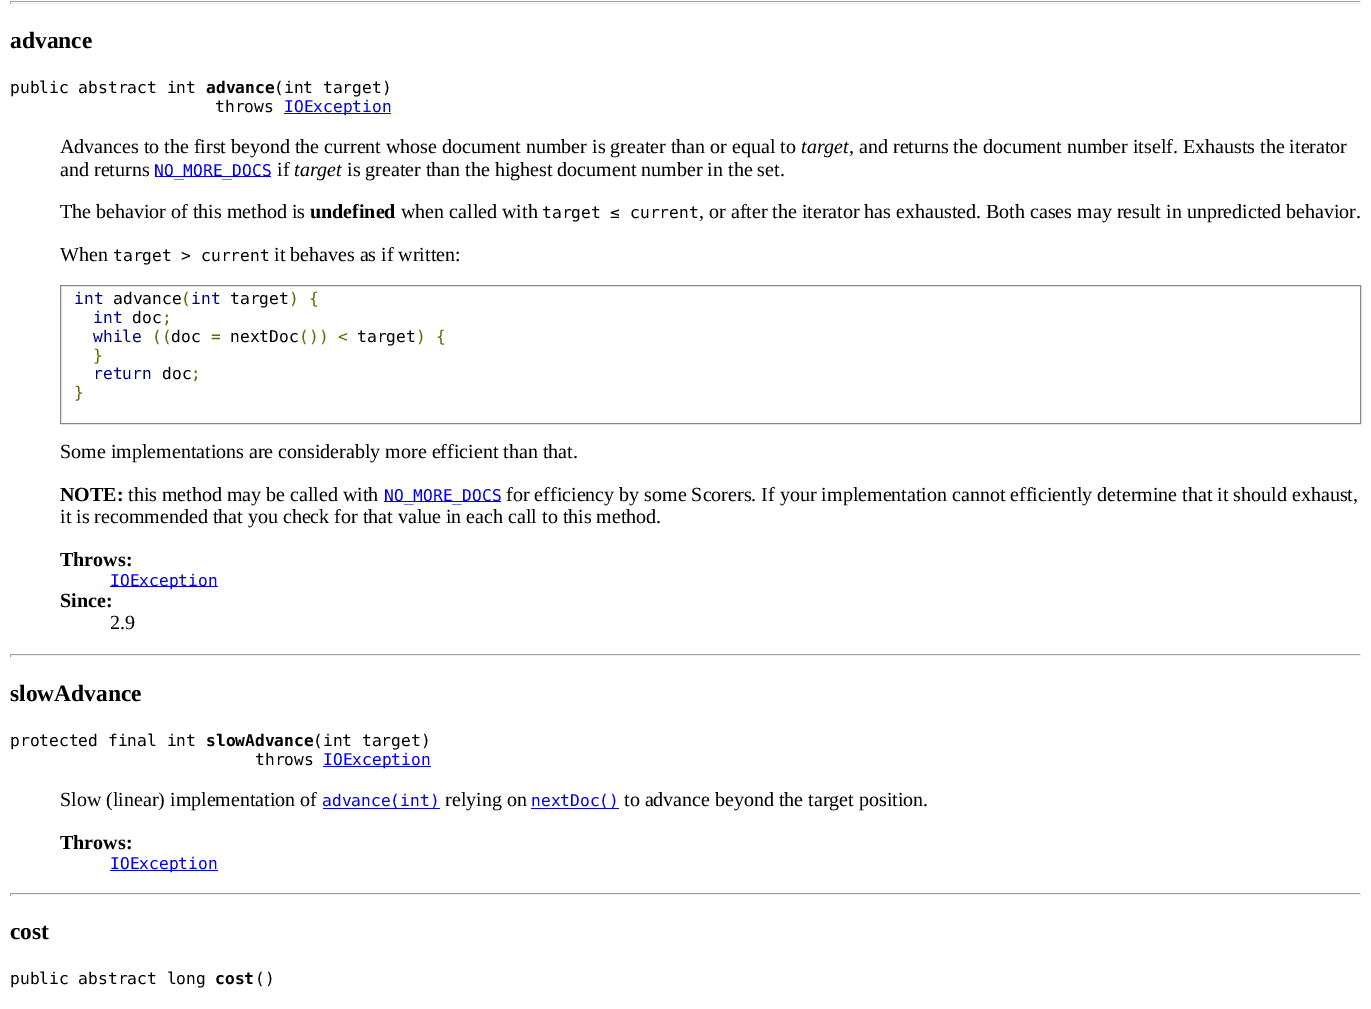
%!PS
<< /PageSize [1371 1009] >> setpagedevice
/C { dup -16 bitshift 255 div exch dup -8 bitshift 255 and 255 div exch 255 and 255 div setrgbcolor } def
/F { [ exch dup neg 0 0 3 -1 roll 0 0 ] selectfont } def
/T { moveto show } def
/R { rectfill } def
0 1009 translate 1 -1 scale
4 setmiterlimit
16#FFFFFF C
0 0 1371 1009 R
16#9F9F9F C
10 1 1351 1 R
16#EEEEEE C
1360 1 1 3 R
10 3 1351 1 R
16#9F9F9F C
10 1 1 3 R
/LiberationSerif-Bold 23.5 F
16#000000 C
(advance) 10 48 T
/DejaVuSansMono-Regular 16.25 F
(public abstract int) 10 93 T
/DejaVuSansMono-Bold 16.25 F
(advance) 206 93 T
/DejaVuSansMono-Regular 16.25 F
(\(int target\)) 274 93 T
(throws) 215 112 T
16#0000EE C
284 113 107 1 R
(IOException) 284 112 T
/LiberationSerif-Regular 20 F
16#000000 C
(Advances to the first beyond the current whose document number is greater than or equal to) 60 153 T
/LiberationSerif-Italic 20 F
(target) 801 153 T
/LiberationSerif-Regular 20 F
(, and returns the document number itself. Exhausts the iterator) 849 153 T
(and returns) 60 176 T
16#0000EE C
155 176 116 1 R
/DejaVuSansMono-Regular 16.25 F
(NO_MORE_DOCS) 154 176 T
/LiberationSerif-Regular 20 F
16#000000 C
(if) 277 176 T
/LiberationSerif-Italic 20 F
(target) 294 176 T
/LiberationSerif-Regular 20 F
(is greater than the highest document number in the set.) 347 176 T
(The behavior of this method is) 60 218 T
/LiberationSerif-Bold 20 F
(undefined) 310 218 T
/LiberationSerif-Regular 20 F
(when called with) 401 218 T
/DejaVuSansMono-Regular 16.25 F
(target ≤ current) 542 218 T
/LiberationSerif-Regular 20 F
(, or after the iterator has exhausted. Both cases may result in unpredicted behavior.) 699 218 T
(When) 60 261 T
/DejaVuSansMono-Regular 16.25 F
(target > current) 113 261 T
/LiberationSerif-Regular 20 F
(it behaves as if written:) 274 261 T
16#888888 C
60.5 285.5 1300 138 rectstroke
/DejaVuSansMono-Regular 16.25 F
16#000088 C
(int) 74 304 T
16#000000 C
(advance) 113 304 T
16#666600 C
(\() 181 304 T
16#000088 C
(int) 191 304 T
16#000000 C
(target) 230 304 T
16#666600 C
(\) {) 289 304 T
16#000088 C
(int) 93 323 T
16#000000 C
(doc) 132 323 T
16#666600 C
(;) 162 323 T
16#000088 C
(while) 93 342 T
16#666600 C
(\(\() 152 342 T
16#000000 C
(doc) 171 342 T
16#666600 C
(=) 211 342 T
16#000000 C
(nextDoc) 230 342 T
16#666600 C
(\(\)\) <) 299 342 T
16#000000 C
(target) 357 342 T
16#666600 C
(\) {) 416 342 T
(}) 93 361 T
16#000088 C
(return) 93 379 T
16#000000 C
(doc) 162 379 T
16#666600 C
(;) 191 379 T
(}) 74 398 T
/LiberationSerif-Regular 20 F
16#000000 C
(Some implementations are considerably more efficient than that.) 60 458 T
/LiberationSerif-Bold 20 F
(NOTE:) 60 501 T
/LiberationSerif-Regular 20 F
(this method may be called with) 128 501 T
16#0000EE C
384 501 117 1 R
/DejaVuSansMono-Regular 16.25 F
(NO_MORE_DOCS) 384 501 T
/LiberationSerif-Regular 20 F
16#000000 C
(for efficiency by some Scorers. If your implementation cannot efficiently determine that it should exhaust,) 506 501 T
(it is recommended that you check for that value in each call to this method.) 60 523 T
/LiberationSerif-Bold 20 F
(Throws:) 60 566 T
16#0000EE C
110 586 108 1 R
/DejaVuSansMono-Regular 16.25 F
(IOException) 110 586 T
/LiberationSerif-Bold 20 F
16#000000 C
(Since:) 60 607 T
/LiberationSerif-Regular 20 F
(2.9) 110 629 T
16#9F9F9F C
10 654 1351 1 R
16#EEEEEE C
1360 654 1 3 R
10 655 1351 1 R
16#9F9F9F C
10 654 1 3 R
/LiberationSerif-Bold 23.5 F
16#000000 C
(slowAdvance) 10 701 T
/DejaVuSansMono-Regular 16.25 F
(protected final int) 10 746 T
/DejaVuSansMono-Bold 16.25 F
(slowAdvance) 206 746 T
/DejaVuSansMono-Regular 16.25 F
(\(int target\)) 313 746 T
(throws) 255 765 T
16#0000EE C
323 766 108 1 R
(IOException) 323 765 T
/LiberationSerif-Regular 20 F
16#000000 C
(Slow \(linear\) implementation of) 60 806 T
16#0000EE C
323 808 117 1 R
/DejaVuSansMono-Regular 16.25 F
(advance\(int\)) 322 806 T
/LiberationSerif-Regular 20 F
16#000000 C
(relying on) 445 806 T
16#0000EE C
531 808 88 1 R
/DejaVuSansMono-Regular 16.25 F
(nextDoc\(\)) 531 806 T
/LiberationSerif-Regular 20 F
16#000000 C
(to advance beyond the target position.) 624 806 T
/LiberationSerif-Bold 20 F
(Throws:) 60 849 T
16#0000EE C
110 870 108 1 R
/DejaVuSansMono-Regular 16.25 F
(IOException) 110 869 T
16#9F9F9F C
10 893 1351 1 R
16#EEEEEE C
1360 893 1 3 R
10 894 1351 1 R
16#9F9F9F C
10 893 1 3 R
/LiberationSerif-Bold 23.5 F
16#000000 C
(cost) 10 939 T
/DejaVuSansMono-Regular 16.25 F
(public abstract long) 10 984 T
/DejaVuSansMono-Bold 16.25 F
(cost) 215 984 T
/DejaVuSansMono-Regular 16.25 F
(\(\)) 255 984 T
showpage
